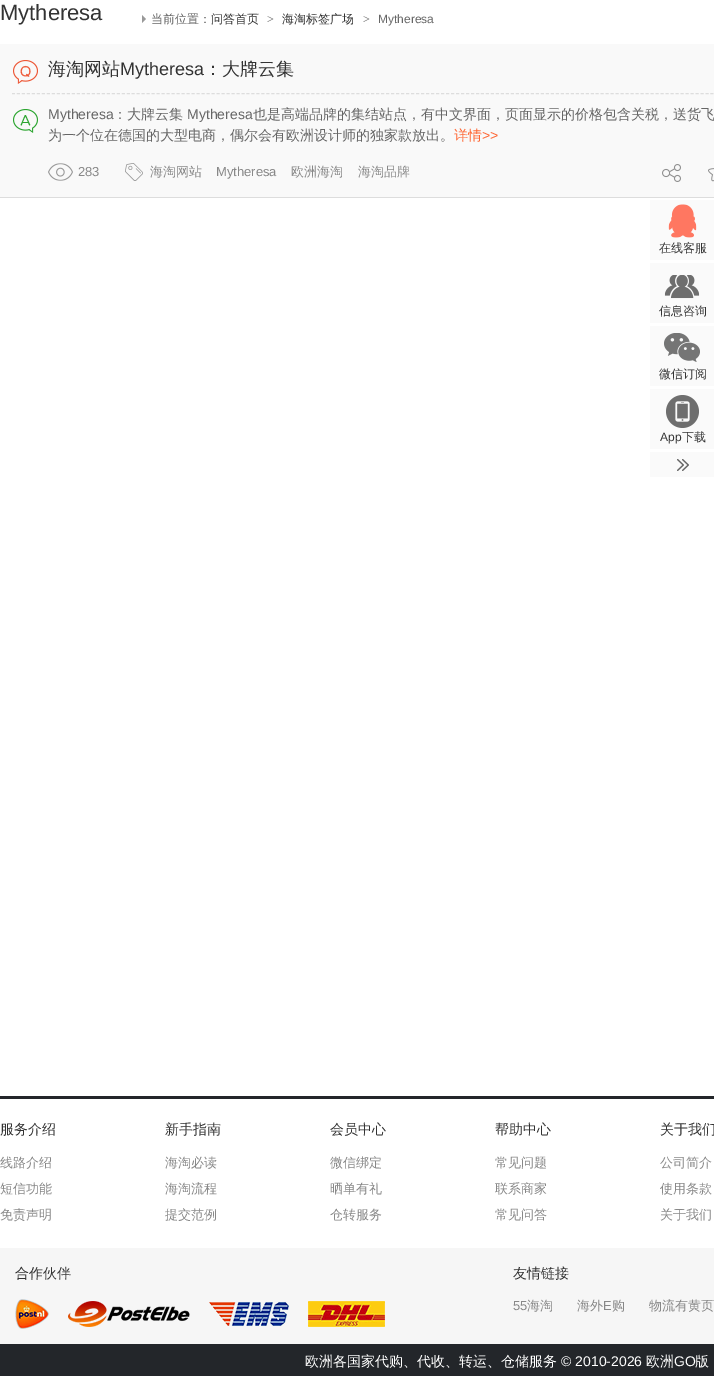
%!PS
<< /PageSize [714 1376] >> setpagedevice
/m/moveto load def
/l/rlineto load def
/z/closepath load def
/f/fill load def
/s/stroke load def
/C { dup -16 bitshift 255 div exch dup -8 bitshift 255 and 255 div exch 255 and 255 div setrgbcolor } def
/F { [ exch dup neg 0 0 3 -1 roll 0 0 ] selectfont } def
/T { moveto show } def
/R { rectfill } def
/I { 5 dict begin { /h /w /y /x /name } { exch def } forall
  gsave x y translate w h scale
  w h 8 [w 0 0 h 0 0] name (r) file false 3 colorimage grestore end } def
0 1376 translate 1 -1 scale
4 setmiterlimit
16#FFFFFF C
0 0 714 1376 R
/LiberationSans-Regular 22 F
16#333333 C
(Mytheresa) 0 20 T
16#999999 C
142 23 m 0 -8 l 4 4 l z f
/WenQuanYiZenHei-Medium 12 F
16#666666 C
(当前位置：) 151 23 T
16#333333 C
(问答首页) 211 23 T
/LiberationSerif-Regular 12 F
16#666666 C
(>) 267 23 T
/WenQuanYiZenHei-Medium 12 F
16#333333 C
(海淘标签广场) 282 23 T
/LiberationSerif-Regular 12 F
16#666666 C
(>) 363 23 T
/LiberationSans-Regular 12 F
(Mytheresa) 378 23 T
16#F9F9F9 C
0 44 714 153 R
16#DDDDDD C
0 197 714 1 R
[3 1.99] 0 setdash
12 93.5 m 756 0 l s
(1.rgb) 13 60 25 24 I
/WenQuanYiZenHei-Medium 18 F
16#333333 C
(海淘网站) 48 75 T
/LiberationSans-Regular 18 F
(Mytheresa) 120 75 T
/WenQuanYiZenHei-Medium 18 F
(：大牌云集) 204 75 T
(2.rgb) 13 109 25 24 I
/LiberationSans-Regular 14 F
16#666666 C
(Mytheresa) 48 119 T
/WenQuanYiZenHei-Medium 14 F
(：大牌云集) 113 119 T
/LiberationSans-Regular 14 F
(Mytheresa) 187 119 T
/WenQuanYiZenHei-Medium 14 F
(也是高端品牌的集结站点，有中文界面，页面显示的价格包含关税，送货飞) 253 119 T
(为一个位在德国的大型电商，偶尔会有欧洲设计师的独家款放出。) 48 140 T
16#FF6633 C
(详情) 454 140 T
/LiberationSans-Regular 14 F
(>>) 482 140 T
(3.rgb) 48 163 25 18 I
/LiberationSans-Regular 13 F
16#888888 C
(283) 78 176 T
(4.rgb) 125 163 18 18 I
/WenQuanYiZenHei-Medium 13 F
(海淘网站) 150 176 T
/LiberationSans-Regular 13 F
(Mytheresa) 216 176 T
/WenQuanYiZenHei-Medium 13 F
(欧洲海淘) 291 176 T
(海淘品牌) 358 176 T
(5.rgb) 662 164 19 18 I
(6.rgb) 708 168 6 14 I
16#FAFAFA C
650 200 64 60 R
(7.rgb) 668 204 29 34 I
/WenQuanYiZenHei-Medium 12 F
16#333333 C
(在线客服) 659 252 T
16#FAFAFA C
650 263 64 60 R
(8.rgb) 664 275 36 24 I
16#333333 C
(信息咨询) 659 315 T
16#FAFAFA C
650 326 64 60 R
(9.rgb) 664 333 36 29 I
16#333333 C
(微信订阅) 659 378 T
16#FAFAFA C
650 389 64 60 R
(10.rgb) 666 395 33 33 I
/LiberationSans-Regular 12 F
16#333333 C
(App) 660 441 T
/WenQuanYiZenHei-Medium 12 F
(下载) 682 441 T
16#FAFAFA C
650 452 64 25 R
(11.rgb) 677 459 12 12 I
16#23262A C
0 1096 714 3 R
/WenQuanYiZenHei-Medium 14 F
16#333333 C
(服务介绍) 0 1134 T
/WenQuanYiZenHei-Medium 13 F
16#888888 C
(线路介绍) 0 1167 T
(短信功能) 0 1193 T
(免责声明) 0 1219 T
/WenQuanYiZenHei-Medium 14 F
16#333333 C
(新手指南) 165 1134 T
/WenQuanYiZenHei-Medium 13 F
16#888888 C
(海淘必读) 165 1167 T
(海淘流程) 165 1193 T
(提交范例) 165 1219 T
/WenQuanYiZenHei-Medium 14 F
16#333333 C
(会员中心) 330 1134 T
/WenQuanYiZenHei-Medium 13 F
16#888888 C
(微信绑定) 330 1167 T
(晒单有礼) 330 1193 T
(仓转服务) 330 1219 T
/WenQuanYiZenHei-Medium 14 F
16#333333 C
(帮助中心) 495 1134 T
/WenQuanYiZenHei-Medium 13 F
16#888888 C
(常见问题) 495 1167 T
(联系商家) 495 1193 T
(常见问答) 495 1219 T
/WenQuanYiZenHei-Medium 14 F
16#333333 C
(关于我们) 660 1134 T
/WenQuanYiZenHei-Medium 13 F
16#888888 C
(公司简介) 660 1167 T
(使用条款) 660 1193 T
(关于我们) 660 1219 T
16#F6F6F6 C
0 1248 714 96 R
/WenQuanYiZenHei-Medium 14 F
16#333333 C
(合作伙伴) 15 1278 T
(12.rgb) 15 1299 34 30 I
(13.rgb) 68 1301 122 26 I
(14.rgb) 209 1302 80 24 I
(15.rgb) 308 1301 77 26 I
(友情链接) 513 1278 T
/LiberationSans-Regular 13 F
16#888888 C
(55) 513 1310 T
/WenQuanYiZenHei-Medium 13 F
(海淘) 527 1310 T
(海外) 577 1310 T
/LiberationSans-Regular 13 F
(E) 603 1310 T
/WenQuanYiZenHei-Medium 13 F
(购) 612 1310 T
(物流有黄页) 649 1310 T
16#23262A C
0 1344 714 32 R
/WenQuanYiZenHei-Medium 14 F
16#FFFFFF C
(欧洲各国家代购、代收、转运、仓储服务) 305 1366 T
/LiberationSans-Regular 14 F
(© 2010-2026) 561 1366 T
/WenQuanYiZenHei-Medium 14 F
(欧洲) 646 1366 T
/LiberationSans-Regular 14 F
(GO) 674 1366 T
/WenQuanYiZenHei-Medium 14 F
(版) 695 1366 T
showpage
